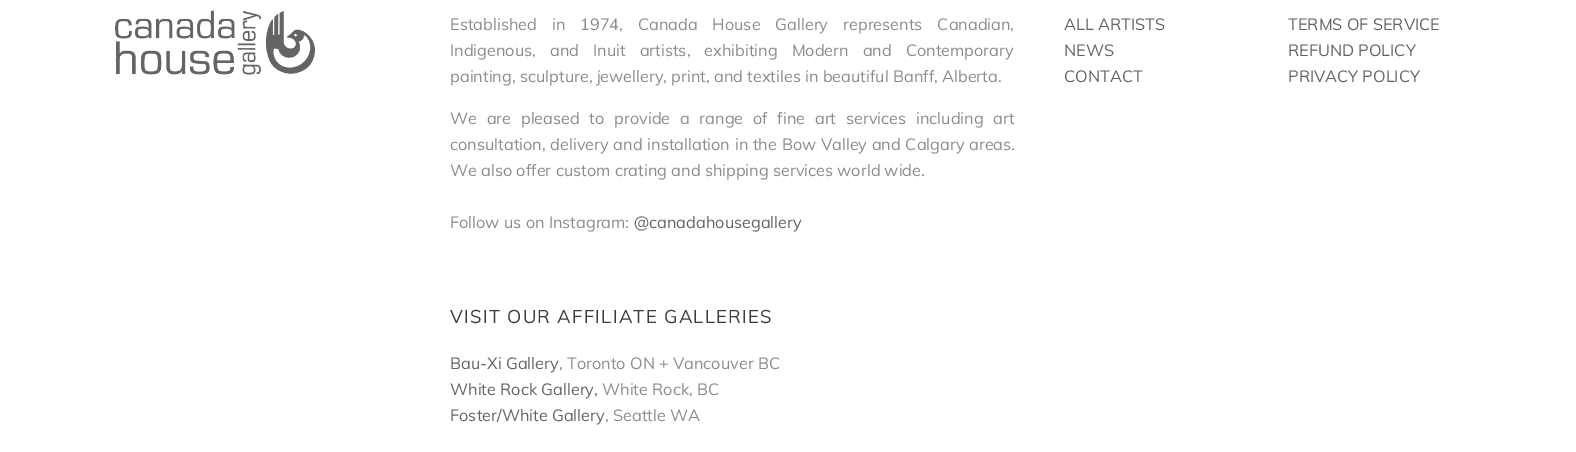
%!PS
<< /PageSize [1576 452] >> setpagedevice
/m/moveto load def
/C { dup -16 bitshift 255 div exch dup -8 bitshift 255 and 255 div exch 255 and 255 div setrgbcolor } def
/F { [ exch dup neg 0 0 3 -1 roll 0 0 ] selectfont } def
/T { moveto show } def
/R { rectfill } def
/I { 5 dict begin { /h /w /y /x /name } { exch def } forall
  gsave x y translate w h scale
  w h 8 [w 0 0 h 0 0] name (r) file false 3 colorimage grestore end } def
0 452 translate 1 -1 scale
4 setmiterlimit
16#FFFFFF C
0 0 1576 452 R
(1.rgb) 115 10 200 65 I
/Muli-Regular 16.25 F
16#8B8B8B C
450 30 m 10.75 0 32 (Established in 1974, Canada House Gallery represents Canadian,) widthshow
450 56 m 9.75 0 32 (Indigenous, and Inuit artists, exhibiting Modern and Contemporary) widthshow
(painting, sculpture, jewellery, print, and textiles in beautiful Banff, Alberta.) 450 82 T
450 124 m 5.5 0 32 (We are pleased to provide a range of fine art services including art) widthshow
450 150 m .5 0 32 (consultation, delivery and installation in the Bow Valley and Calgary areas.) widthshow
(We also offer custom crating and shipping services world wide.) 450 176 T
(Follow us on Instagram:) 450 228 T
16#626262 C
(@canadahousegallery) 634 228 T
/Muli-Regular 18.4 F
16#3A3B3C C
450 323 m 1.25 0 (VISIT OUR AFFILIATE GALLERIES) ashow
/Muli-Regular 16.25 F
16#626262 C
(Bau-Xi Gallery) 450 369 T
16#8B8B8B C
(, Toronto ON + Vancouver BC) 559 369 T
16#626262 C
(White Rock Gallery,) 450 395 T
16#8B8B8B C
(White Rock, BC) 602 395 T
16#626262 C
(Foster/White Gallery) 450 421 T
16#8B8B8B C
(, Seattle WA) 605 421 T
16#626262 C
(ALL ARTISTS) 1064 30 T
(NEWS) 1064 56 T
(CONTACT) 1064 82 T
(TERMS OF SERVICE) 1288 30 T
(REFUND POLICY) 1288 56 T
(PRIVACY POLICY) 1288 82 T
showpage
